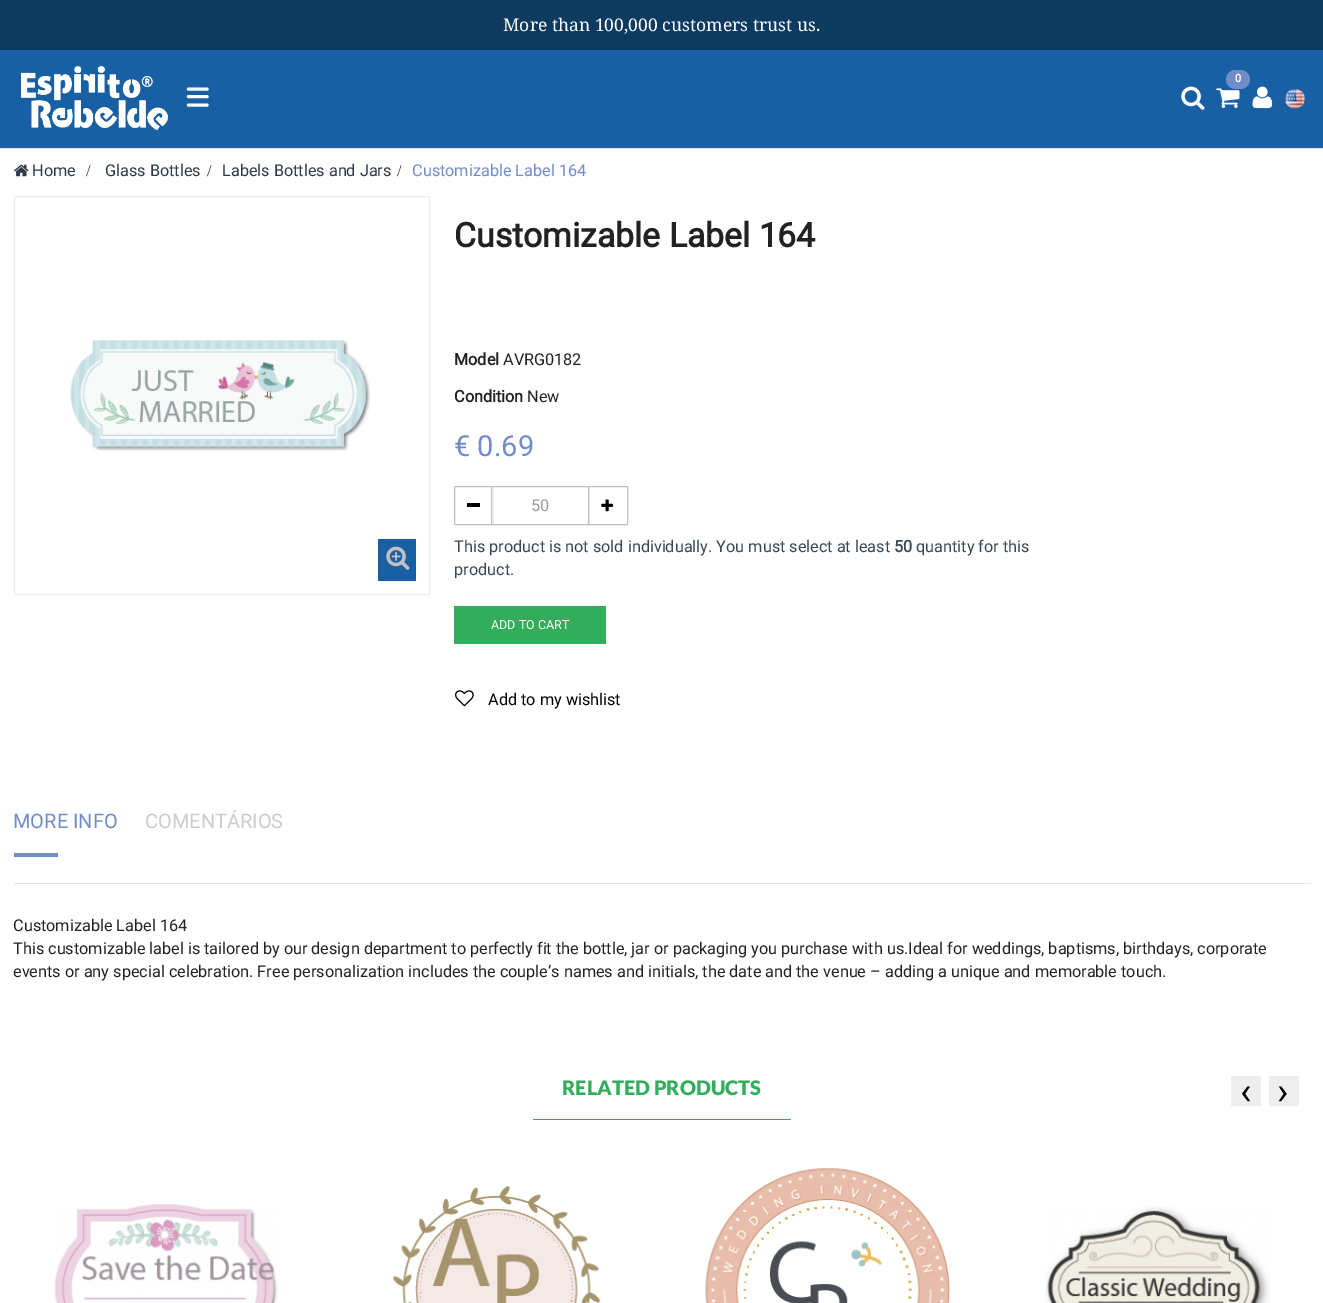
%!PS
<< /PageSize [1323 1303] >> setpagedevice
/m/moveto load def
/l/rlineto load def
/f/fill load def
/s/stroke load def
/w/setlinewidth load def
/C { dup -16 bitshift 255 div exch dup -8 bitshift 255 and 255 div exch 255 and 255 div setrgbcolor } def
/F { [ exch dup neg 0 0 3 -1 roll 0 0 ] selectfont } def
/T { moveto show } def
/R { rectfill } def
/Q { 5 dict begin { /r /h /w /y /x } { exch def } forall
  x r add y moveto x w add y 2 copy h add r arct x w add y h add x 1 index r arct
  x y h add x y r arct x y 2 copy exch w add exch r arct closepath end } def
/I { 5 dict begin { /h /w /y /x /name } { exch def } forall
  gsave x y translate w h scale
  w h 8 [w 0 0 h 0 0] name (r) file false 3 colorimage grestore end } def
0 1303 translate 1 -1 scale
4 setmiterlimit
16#FFFFFF C
0 0 1323 1303 R
16#E5E5E5 C
0 148 1323 1 R
16#0F3A5F C
0 0 1323 50 R
/NotoSerif-Regular 17.5 F
16#FFFFFF C
(More than 100,000 customers trust us.) 503 31 T
16#1860A3 C
0 50 1323 98 R
(1.rgb) 21 66 147 65 I
(2.rgb) 1216 88 24 20 I
16#708DCA C
1226 70 24 19 9.5 Q f
/Roboto-Bold 11 F
16#FFFFFF C
(0) 1235 82 T
(3.rgb) 1181 86 24 24 I
(4.rgb) 1252 86 21 23 I
(5.rgb) 1285 89 20 20 I
3.1 w
1 setlinecap
188.5 89 m 18.5 0 l 188.5 96.5 m 18.5 0 l 188.5 105 m 18.5 0 l s
(6.rgb) 14 164 15 13 I
/Roboto-Regular 16.25 F
16#2E3A47 C
(Home) 32 176 T
/LiberationSerif-Regular 16.25 F
(/) 86 176 T
/Roboto-Regular 16.25 F
(Glass Bottles) 105 176 T
/LiberationSerif-Regular 16.25 F
(/) 207 176 T
/Roboto-Regular 16.25 F
(Labels Bottles and Jars) 222 176 T
/LiberationSerif-Regular 16.25 F
(/) 397 176 T
/Roboto-Regular 16.25 F
16#708DCA C
(Customizable Label 164) 412 176 T
16#EEEEEE C
1 w
0 setlinecap
14.5 196.5 415 398 rectstroke
(7.rgb) 70 340 301 111 I
16#1860A3 C
378 539 38 42 R
(8.rgb) 386 546 24 24 I
/Roboto-Bold 33.75 F
16#222222 C
(Customizable Label 164) 454 247 T
/Roboto-Bold 16.25 F
(Model) 454 365 T
/Roboto-Regular 16.25 F
(AVRG0182) 503 365 T
/Roboto-Bold 16.25 F
(Condition) 454 402 T
/Roboto-Regular 16.25 F
(New) 527 402 T
/Roboto-Regular 29 F
16#708DCA C
(€ 0.69) 454 456 T
16#BDC2C9 C
454.5 486.5 38 38 rectstroke
16#000000 C
467 503 13 4 R
16#FFFFFF C
492 487 1 37 R
16#BDC2C9 C
491.5 486.5 97 38 rectstroke
/Roboto-Regular 16.25 F
16#9C9C9C C
(50) 531 511 T
16#BDC2C9 C
588.5 486.5 39 38 rectstroke
(9.rgb) 601 499 13 13 I
16#374853 C
(This product is not sold individually. You must select at least) 454 552 T
/Roboto-Bold 16.25 F
(50) 894 552 T
/Roboto-Regular 16.25 F
(quantity for this) 916 552 T
(product.) 454 575 T
16#32AD5B C
454 606 152 38 R
/Roboto-Regular 12.5 F
16#FFFFFF C
(ADD TO CART) 491 629 T
(10.rgb) 455 690 19 17 I
/Roboto-Regular 16.25 F
16#000000 C
(Add to my wishlist) 488 705 T
16#E5E5E5 C
14 883 1297 1 R
/Roboto-Regular 20 F
16#708DCA C
(MORE INFO) 13 828 T
14 853 44 4 R
16#CCCCCC C
(COMENTÁRIOS) 145 828 T
/Roboto-Regular 16.25 F
16#222222 C
(Customizable Label 164) 13 931 T
(This customizable label is tailored by our design department to perfectly fit the bottle, jar or packaging you purchase with us.Ideal for weddings, baptisms, birthdays, corporate) 13 954 T
(events or any special celebration. Free personalization includes the couple’s names and initials, the date and the venue – adding a unique and memorable touch.) 13 977 T
16#32AD5B C
533 1119 258 1 R
/Lato-Black 20 F
(RELATED PRODUCTS) 562 1095 T
16#EEEEEE C
1231 1076 30 30 R
/Roboto-Regular 38 F
16#000000 C
(‹) 1240 1104 T
16#EEEEEE C
1269 1076 30 30 R
16#000000 C
(›) 1277 1104 T
(11.rgb) 54 1204 224 99 I
(12.rgb) 392 1186 209 117 I
(13.rgb) 705 1168 246 135 I
(14.rgb) 1045 1206 225 97 I
showpage
